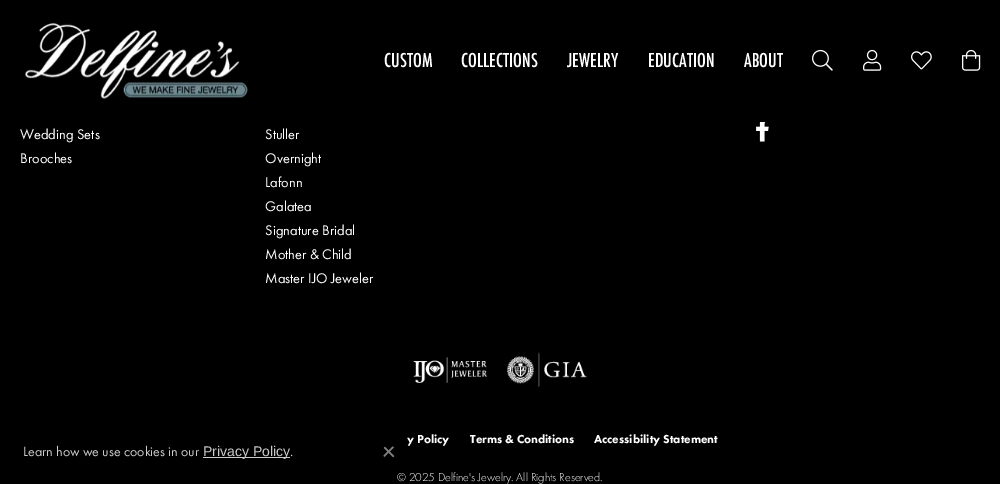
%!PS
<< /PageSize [1000 484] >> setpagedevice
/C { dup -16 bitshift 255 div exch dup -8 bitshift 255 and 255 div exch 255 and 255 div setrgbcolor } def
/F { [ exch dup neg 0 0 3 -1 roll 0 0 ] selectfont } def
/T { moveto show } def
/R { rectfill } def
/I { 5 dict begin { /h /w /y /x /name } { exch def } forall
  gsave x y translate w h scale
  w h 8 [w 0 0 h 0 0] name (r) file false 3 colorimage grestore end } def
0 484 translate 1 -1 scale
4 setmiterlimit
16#000000 C
0 0 1000 484 R
(1.rgb) 25 23 223 76 I
/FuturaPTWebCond-Medium 21 F
16#FFFFFF C
(CUSTOM) 384 67 T
(COLLECTIONS) 461 67 T
(JEWELRY) 567 67 T
(EDUCATION) 648 67 T
(ABOUT) 744 67 T
(2.rgb) 812 49 21 22 I
(3.rgb) 863 49 19 22 I
(4.rgb) 911 51 21 19 I
(5.rgb) 962 49 19 22 I
/FuturaPT-Regular 14.5 F
(Wedding Sets) 20 139 T
(Brooches) 20 163 T
(Stuller) 265 139 T
(Overnight) 265 163 T
(Lafonn) 265 187 T
(Galatea) 265 211 T
(Signature Bridal) 265 235 T
(Mother & Child) 265 259 T
(Master IJO Jeweler) 265 283 T
(6.rgb) 756 122 13 20 I
(7.rgb) 413 357 74 26 I
(8.rgb) 507 352 80 35 I
/FuturaPT-Black 12 F
(y Policy) 407 443 T
(Terms & Conditions) 470 443 T
(Accessibility Statement) 594 443 T
/FuturaPT-Light 12 F
(© 2025 Delfine's Jewelry. All Rights Reserved.) 397 481 T
/FuturaPT-Regular 14 F
16#CCCCCC C
(Learn how we use cookies in our) 23 456 T
203 457 87 1 R
/LiberationSans-Regular 14 F
(Privacy Policy) 203 456 T
/FuturaPT-Regular 14 F
(.) 290 456 T
(9.rgb) 383 446 12 12 I
showpage
